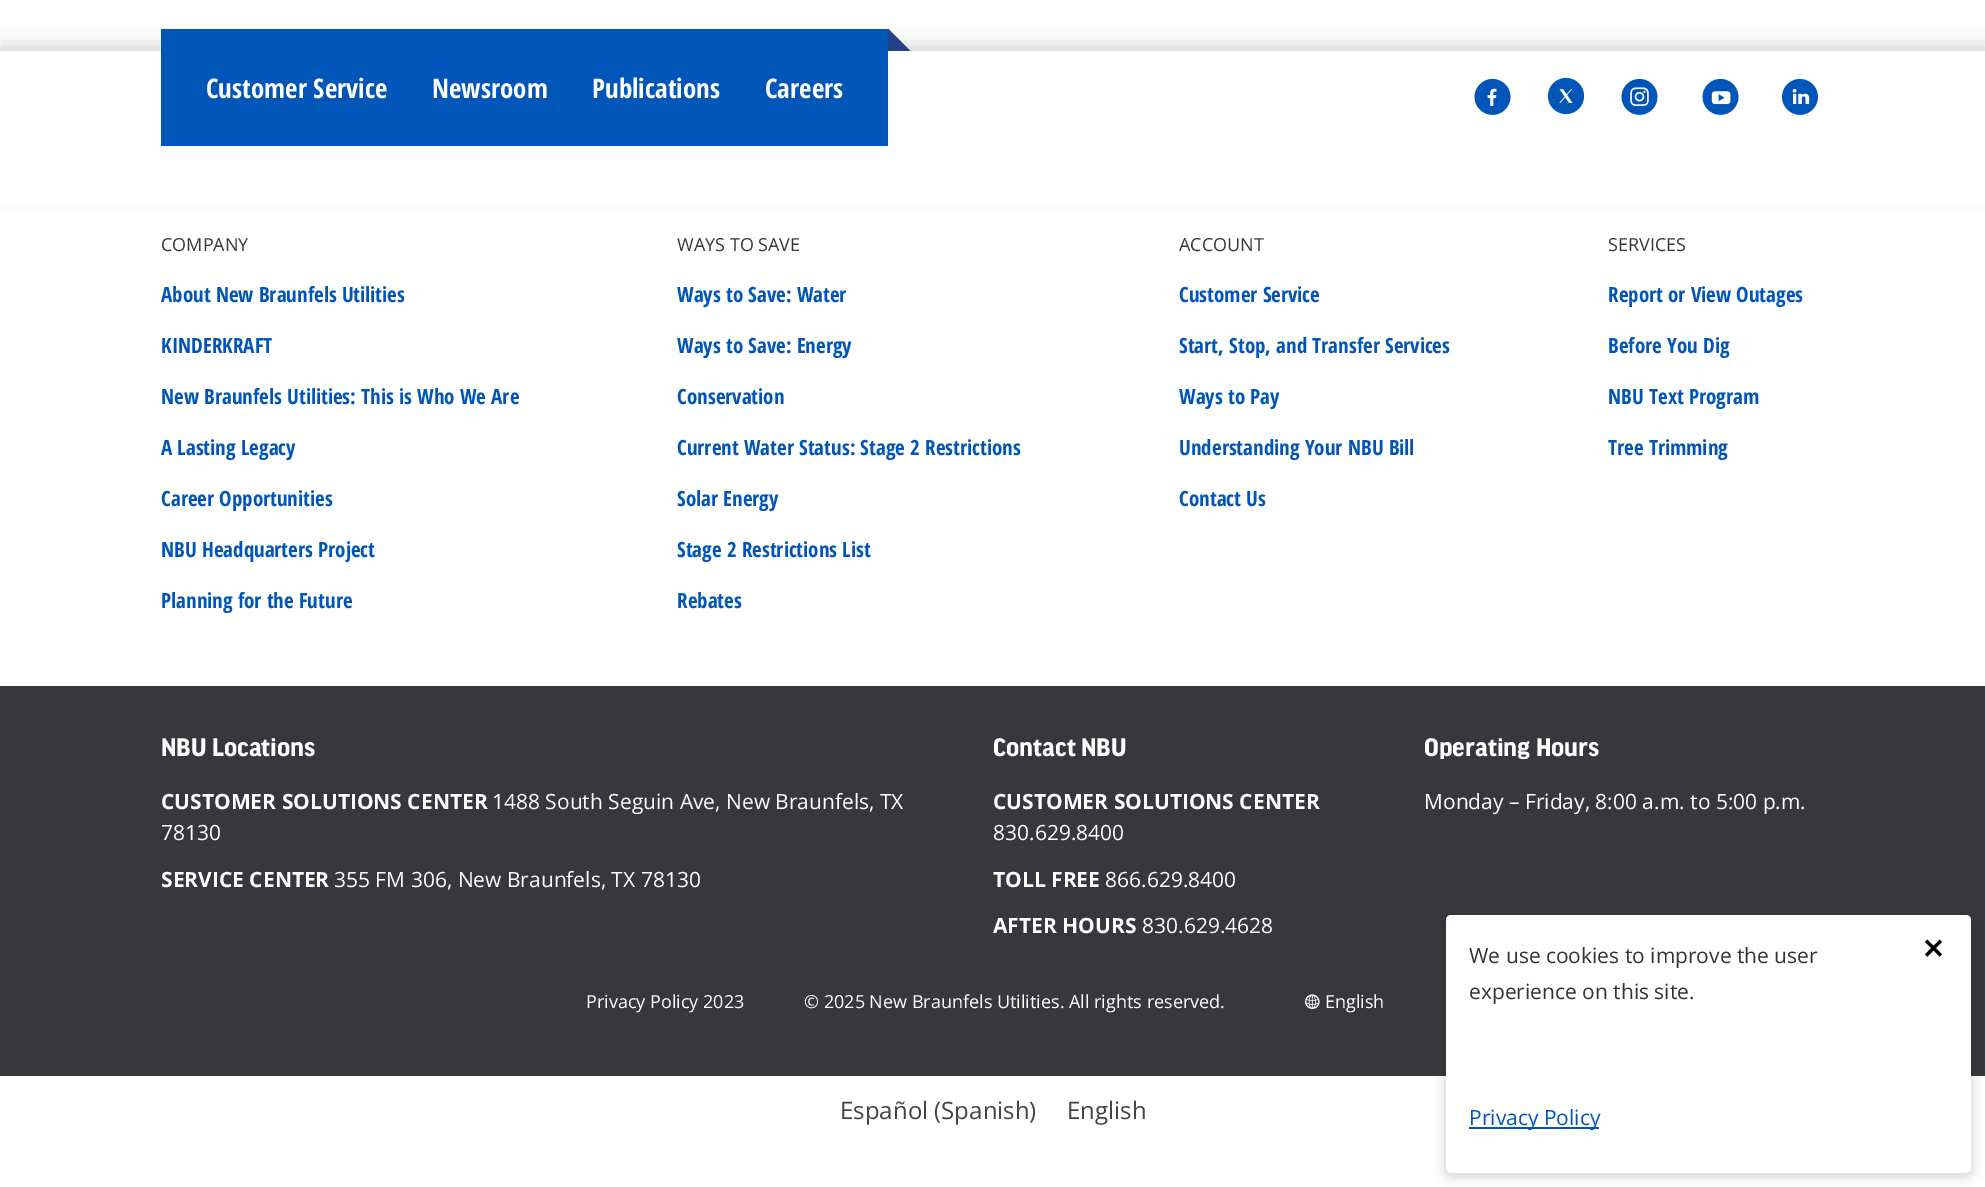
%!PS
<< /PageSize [1985 1187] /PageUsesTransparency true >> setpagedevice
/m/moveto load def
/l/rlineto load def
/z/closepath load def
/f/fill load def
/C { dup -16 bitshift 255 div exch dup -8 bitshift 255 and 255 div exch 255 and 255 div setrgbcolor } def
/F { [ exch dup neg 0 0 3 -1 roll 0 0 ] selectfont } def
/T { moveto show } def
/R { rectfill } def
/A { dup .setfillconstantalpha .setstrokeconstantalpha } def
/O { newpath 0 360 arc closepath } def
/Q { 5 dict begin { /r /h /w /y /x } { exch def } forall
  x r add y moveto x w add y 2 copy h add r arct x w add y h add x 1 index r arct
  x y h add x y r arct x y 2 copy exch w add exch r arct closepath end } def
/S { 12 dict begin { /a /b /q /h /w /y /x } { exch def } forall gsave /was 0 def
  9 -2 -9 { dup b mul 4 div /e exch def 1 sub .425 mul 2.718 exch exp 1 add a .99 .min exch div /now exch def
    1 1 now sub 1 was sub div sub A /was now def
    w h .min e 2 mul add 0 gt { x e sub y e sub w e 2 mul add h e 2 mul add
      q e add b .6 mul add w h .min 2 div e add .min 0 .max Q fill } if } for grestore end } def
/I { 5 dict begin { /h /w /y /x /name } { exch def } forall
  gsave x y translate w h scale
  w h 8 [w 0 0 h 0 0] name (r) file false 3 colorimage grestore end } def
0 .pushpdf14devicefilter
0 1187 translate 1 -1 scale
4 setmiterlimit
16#FFFFFF C
0 0 1985 1187 R
16#000000 C
0 48 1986 140 0 11 .2 S
16#FFFFFF C
0 51 1985 155 R
16#0056B8 C
161 29 727 117 R
16#234188 C
888 51 m 0 -22.5 l 22.5 22.5 l z f
/OpenSansCondensed-Bold 27 F
16#FFFFFF C
(Customer Service) 206 98 T
(Newsroom) 432 98 T
(Publications) 592 98 T
(Careers) 765 98 T
(1.rgb) 1474 78 37 37 I
16#0056B8 C
1566 96 18 O f
(2.rgb) 1559 89 14 14 I
(3.rgb) 1621 78 37 37 I
(4.rgb) 1702 78 37 37 I
(5.rgb) 1782 78 36 37 I
/OpenSans-Regular 18 F
16#37373C C
(COMPANY) 161 251 T
/OpenSansCondensed-Bold 21 F
16#0056B8 C
(About New Braunfels Utilities) 161 302 T
(KINDERKRAFT) 161 353 T
(New Braunfels Utilities: This is Who We Are) 161 404 T
(A Lasting Legacy) 161 455 T
(Career Opportunities) 161 506 T
(NBU Headquarters Project) 161 557 T
(Planning for the Future) 161 608 T
/OpenSans-Regular 18 F
16#37373C C
(WAYS TO SAVE) 677 251 T
/OpenSansCondensed-Bold 21 F
16#0056B8 C
(Ways to Save: Water) 677 302 T
(Ways to Save: Energy) 677 353 T
(Conservation) 677 404 T
(Current Water Status: Stage 2 Restrictions) 677 455 T
(Solar Energy) 677 506 T
(Stage 2 Restrictions List) 677 557 T
(Rebates) 677 608 T
/OpenSans-Regular 18 F
16#37373C C
(ACCOUNT) 1179 251 T
/OpenSansCondensed-Bold 21 F
16#0056B8 C
(Customer Service) 1179 302 T
(Start, Stop, and Transfer Services) 1179 353 T
(Ways to Pay) 1179 404 T
(Understanding Your NBU Bill) 1179 455 T
(Contact Us) 1179 506 T
/OpenSans-Regular 18 F
16#37373C C
(SERVICES) 1608 251 T
/OpenSansCondensed-Bold 21 F
16#0056B8 C
(Report or View Outages) 1608 302 T
(Before You Dig) 1608 353 T
(NBU Text Program) 1608 404 T
(Tree Trimming) 1608 455 T
16#37373C C
0 686 1985 390 R
/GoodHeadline-Bold 27 F
16#FFFFFF C
(NBU Locations) 161 756 T
/OpenSans-Bold 21 F
(CUSTOMER SOLUTIONS CENTER) 161 809 T
/OpenSans-Regular 21 F
(1488 South Seguin Ave, New Braunfels, TX) 492 809 T
(78130) 161 840 T
/OpenSans-Bold 21 F
(SERVICE CENTER) 161 887 T
/OpenSans-Regular 21 F
(355 FM 306, New Braunfels, TX 78130) 334 887 T
/GoodHeadline-Bold 27 F
(Contact NBU) 993 756 T
/OpenSans-Bold 21 F
(CUSTOMER SOLUTIONS CENTER) 993 809 T
/OpenSans-Regular 21 F
(830.629.8400) 993 840 T
/OpenSans-Bold 21 F
(TOLL FREE) 993 887 T
/OpenSans-Regular 21 F
(866.629.8400) 1105 887 T
/OpenSans-Bold 21 F
(AFTER HOURS) 993 933 T
/OpenSans-Regular 21 F
(830.629.4628) 1142 933 T
/GoodHeadline-Bold 27 F
(Operating Hours) 1424 756 T
/OpenSans-Regular 21 F
(Monday – Friday, 8:00 a.m. to 5:00 p.m.) 1424 809 T
/OpenSans-Regular 18 F
(Privacy Policy 2023) 586 1008 T
(© 2025 New Braunfels Utilities. All rights reserved.) 804 1008 T
(6.rgb) 1305 994 15 15 I
(English) 1325 1008 T
/OpenSans-Regular 24 F
16#444444 C
(Español \(Spanish\)) 840 1119 T
(English) 1067 1119 T
16#000000 C
1446 918 525 258 5 6 .2 S
16#FFFFFF C
1446 915 525 258 5 Q f
/OpenSans-Regular 21 F
16#333333 C
(We use cookies to improve the user) 1469 963 T
(experience on this site.) 1469 999 T
16#0056B8 C
1469 1127 130 2 R
(Privacy Policy) 1469 1125 T
(7.rgb) 1924 939 19 18 I
.poppdf14devicefilter showpage
